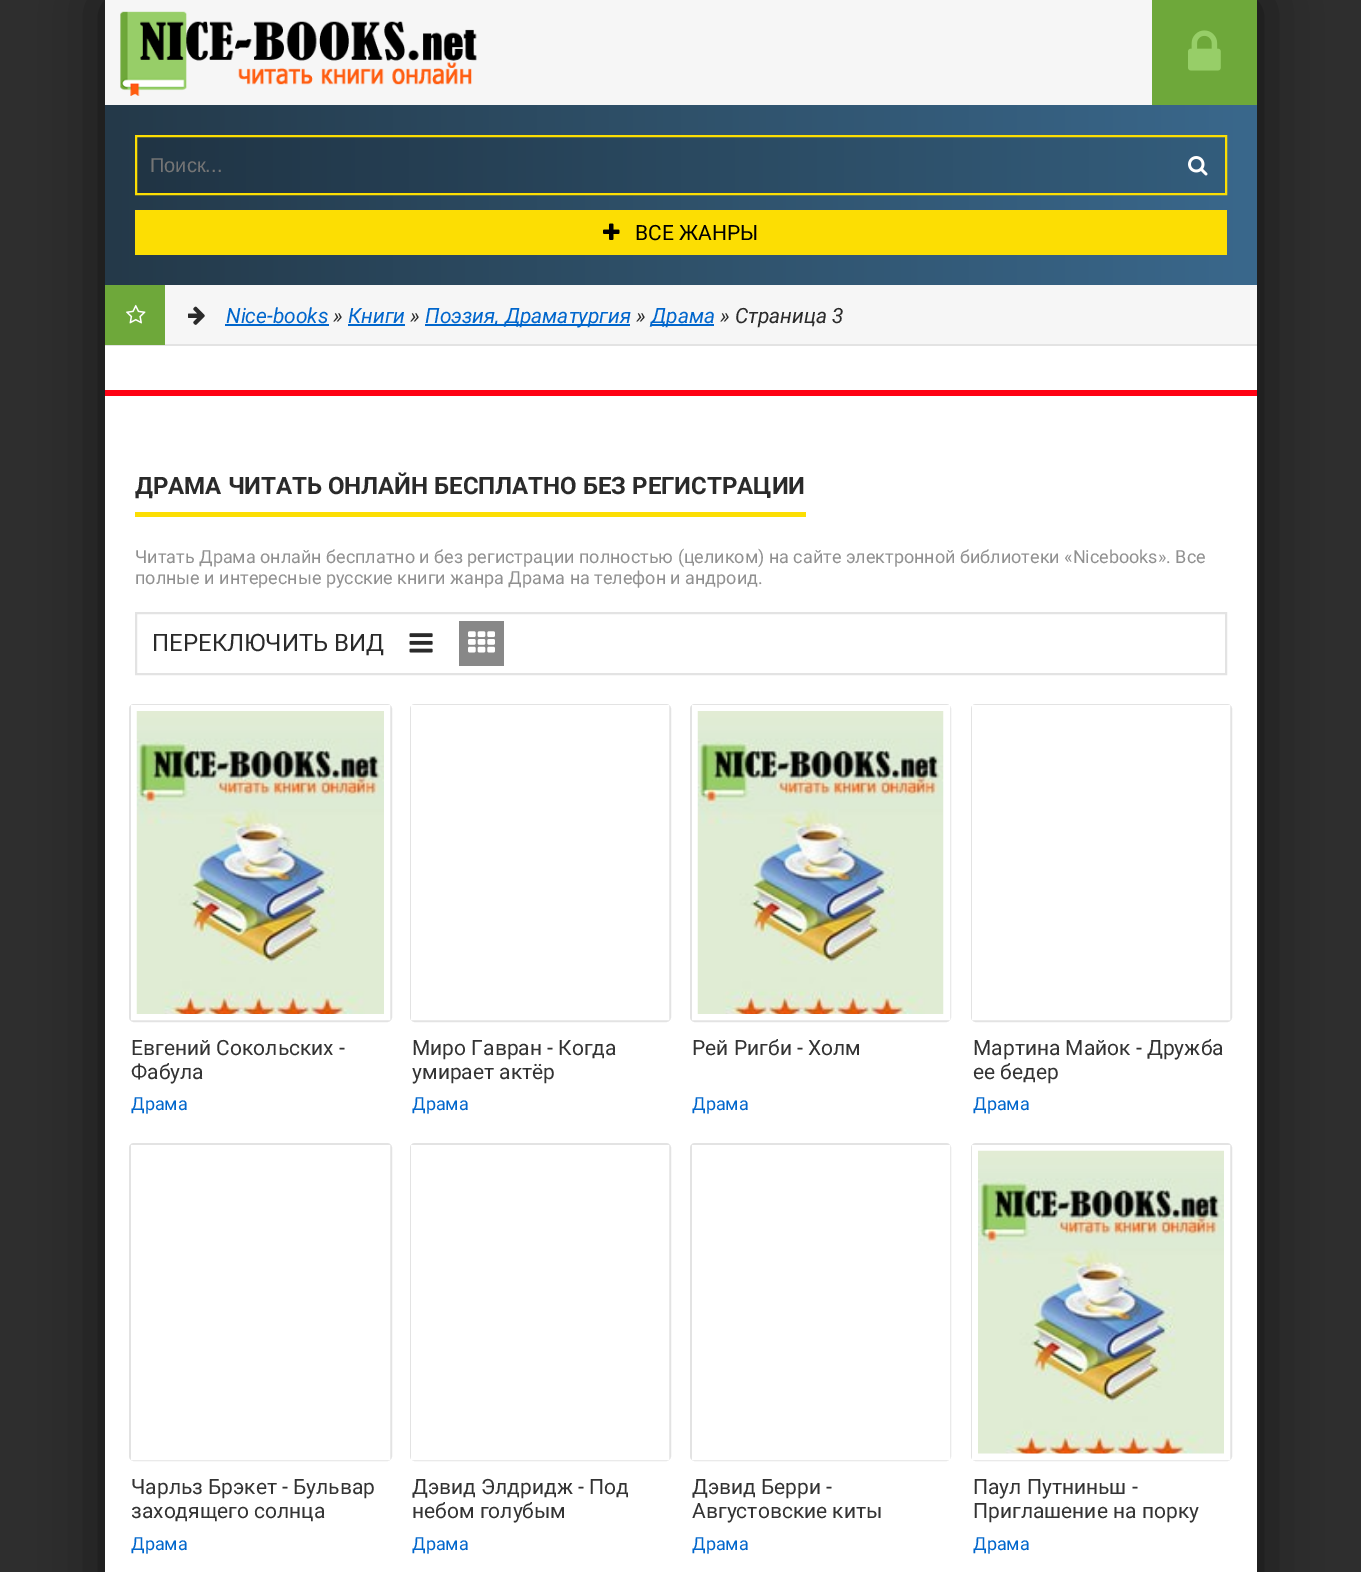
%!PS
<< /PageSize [1361 1572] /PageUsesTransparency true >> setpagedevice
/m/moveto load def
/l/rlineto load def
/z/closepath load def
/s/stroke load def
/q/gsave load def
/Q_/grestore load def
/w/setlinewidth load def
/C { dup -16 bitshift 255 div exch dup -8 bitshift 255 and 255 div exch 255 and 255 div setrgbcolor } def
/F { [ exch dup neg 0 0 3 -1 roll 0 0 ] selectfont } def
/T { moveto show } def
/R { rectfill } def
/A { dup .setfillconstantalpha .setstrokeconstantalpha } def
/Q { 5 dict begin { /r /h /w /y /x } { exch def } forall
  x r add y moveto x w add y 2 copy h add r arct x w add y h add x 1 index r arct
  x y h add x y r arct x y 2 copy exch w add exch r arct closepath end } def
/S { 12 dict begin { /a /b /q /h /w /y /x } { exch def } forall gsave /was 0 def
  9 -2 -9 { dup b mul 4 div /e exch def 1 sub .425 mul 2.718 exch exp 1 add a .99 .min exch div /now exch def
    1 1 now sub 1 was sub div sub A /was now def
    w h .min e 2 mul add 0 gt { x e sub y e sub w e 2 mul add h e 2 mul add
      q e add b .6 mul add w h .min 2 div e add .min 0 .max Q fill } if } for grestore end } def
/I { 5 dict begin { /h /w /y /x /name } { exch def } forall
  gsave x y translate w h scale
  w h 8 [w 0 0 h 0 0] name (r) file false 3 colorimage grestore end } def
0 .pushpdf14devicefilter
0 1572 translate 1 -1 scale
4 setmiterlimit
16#2E2E2E C
0 0 1361 1572 R
16#000000 C
105 0 1152 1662 0 30 .6 S
16#FFFFFF C
105 346 1152 1226 R
16#F6F6F6 C
105 0 1047 105 R
(1.rgb) 120 11 357 85 I
16#6EA83A C
1152 0 105 105 R
(2.rgb) 1188 30 33 41 I
q 105 105 m 1152 0 l 0 180 l -1152 0 l z clip newpath
<< /ShadingType 2 /ColorSpace /DeviceRGB /Coords [1257 195 105 195] /Extend [true true] /Function << /FunctionType 2 /Domain [0 1] /C0 [.227 .408 .549] /C1 [.141 .224 .286] /N 1 >> >> shfill Q_
q 137 137 m 1088 0 l 0 56 l -1088 0 l z clip newpath
<< /ShadingType 2 /ColorSpace /DeviceRGB /Coords [1257 195 105 195] /Extend [true true] /Function << /FunctionType 2 /Domain [0 1] /C0 [.204 .369 .494] /C1 [.125 .2 .259] /N 1 >> >> shfill Q_
16#FCDE03 C
2 w
136 136 1090 58 rectstroke
/LiberationSans-Regular 20 F
16#757575 C
(Поиск...) 150 172 T
(3.rgb) 1188 156 20 20 I
16#FCDE03 C
135 210 1092 45 R
(4.rgb) 603 223 17 17 I
/Roboto-Regular 21 F
16#000000 C
(ВСЕ ЖАНРЫ) 635 240 T
16#F6F6F6 C
165 285 1092 59 R
16#E3E3E3 C
105 344 1152 2 R
16#6EA83A C
105 285 60 60 R
(5.rgb) 126 304 20 20 I
(6.rgb) 188 306 17 19 I
/Roboto-Italic 21 F
16#0066CC C
(Nice-books) 226 323 T
225 324 104 2 R
16#2A2A2A C
(») 333 323 T
16#0066CC C
(Книги) 348 323 T
348 324 57 2 R
16#2A2A2A C
(») 410 323 T
16#0066CC C
425 324 205 2 R
(Поэзия, Драматургия) 425 323 T
16#2A2A2A C
(») 636 323 T
16#0066CC C
651 324 63 2 R
(Драма) 651 323 T
16#2A2A2A C
(» Страница 3) 720 323 T
16#FF0214 C
105 390 1152 6 R
16#FCDE03 C
135 512 671 5 R
/Roboto-Bold 24 F
16#2A2A2A C
(ДРАМА ЧИТАТЬ ОНЛАЙН БЕСПЛАТНО БЕЗ РЕГИСТРАЦИИ) 135 494 T
/Roboto-Regular 18 F
16#909090 C
(Читать Драма онлайн бесплатно и без регистрации полностью \(целиком\) на сайте электронной библиотеки «Nicebooks». Все) 135 563 T
(полные и интересные русские книги жанра Драма на телефон и андроид.) 135 584 T
16#E3E3E3 C
136 613 1090 61 rectstroke
/Roboto-Regular 24 F
16#2A2A2A C
(ПЕРЕКЛЮЧИТЬ ВИД) 152 651 T
(7.rgb) 409 633 24 20 I
16#888888 C
459 621 45 45 R
(8.rgb) 468 631 27 22 I
16#E3E3E3 C
130 705 261 316 4 Q s
16#FFFFFF C
6 w
134 708 253 309 rectstroke
(9.rgb) 136 711 248 303 I
/Roboto-Regular 21 F
16#333333 C
(Евгений Сокольских -) 131 1055 T
(Фабула) 131 1079 T
/Roboto-Regular 18 F
16#0066CC C
(Драма) 131 1110 T
16#E3E3E3 C
2 w
411 705 259 316 4 Q s
16#FFFFFF C
6 w
414 708 252 309 rectstroke
/Roboto-Regular 21 F
16#333333 C
(Миро Гавран - Когда) 412 1055 T
(умирает актёр) 412 1079 T
/Roboto-Regular 18 F
16#0066CC C
(Драма) 412 1110 T
16#E3E3E3 C
2 w
691 705 259 316 4 Q s
16#FFFFFF C
6 w
695 708 252 309 rectstroke
(10.rgb) 697 711 247 303 I
/Roboto-Regular 21 F
16#333333 C
(Рей Ригби - Холм) 692 1055 T
/Roboto-Regular 18 F
16#0066CC C
(Драма) 692 1110 T
16#E3E3E3 C
2 w
972 705 259 316 4 Q s
16#FFFFFF C
6 w
975 708 252 309 rectstroke
/Roboto-Regular 21 F
16#333333 C
(Мартина Майок - Дружба) 973 1055 T
(ее бедер) 973 1079 T
/Roboto-Regular 18 F
16#0066CC C
(Драма) 973 1110 T
16#E3E3E3 C
2 w
130 1144 261 316 4 Q s
16#FFFFFF C
6 w
134 1148 253 309 rectstroke
/Roboto-Regular 21 F
16#333333 C
(Чарльз Брэкет - Бульвар) 131 1494 T
(заходящего солнца) 131 1518 T
/Roboto-Regular 18 F
16#0066CC C
(Драма) 131 1550 T
16#E3E3E3 C
2 w
411 1144 259 316 4 Q s
16#FFFFFF C
6 w
414 1148 252 309 rectstroke
/Roboto-Regular 21 F
16#333333 C
(Дэвид Элдридж - Под) 412 1494 T
(небом голубым) 412 1518 T
/Roboto-Regular 18 F
16#0066CC C
(Драма) 412 1550 T
16#E3E3E3 C
2 w
691 1144 259 316 4 Q s
16#FFFFFF C
6 w
695 1148 252 309 rectstroke
/Roboto-Regular 21 F
16#333333 C
(Дэвид Берри -) 692 1494 T
(Августовские киты) 692 1518 T
/Roboto-Regular 18 F
16#0066CC C
(Драма) 692 1550 T
16#E3E3E3 C
2 w
972 1144 259 316 4 Q s
16#FFFFFF C
6 w
975 1148 252 309 rectstroke
(11.rgb) 978 1150 246 304 I
/Roboto-Regular 21 F
16#333333 C
(Паул Путниньш -) 973 1494 T
(Приглашение на порку) 973 1518 T
/Roboto-Regular 18 F
16#0066CC C
(Драма) 973 1550 T
.poppdf14devicefilter showpage
